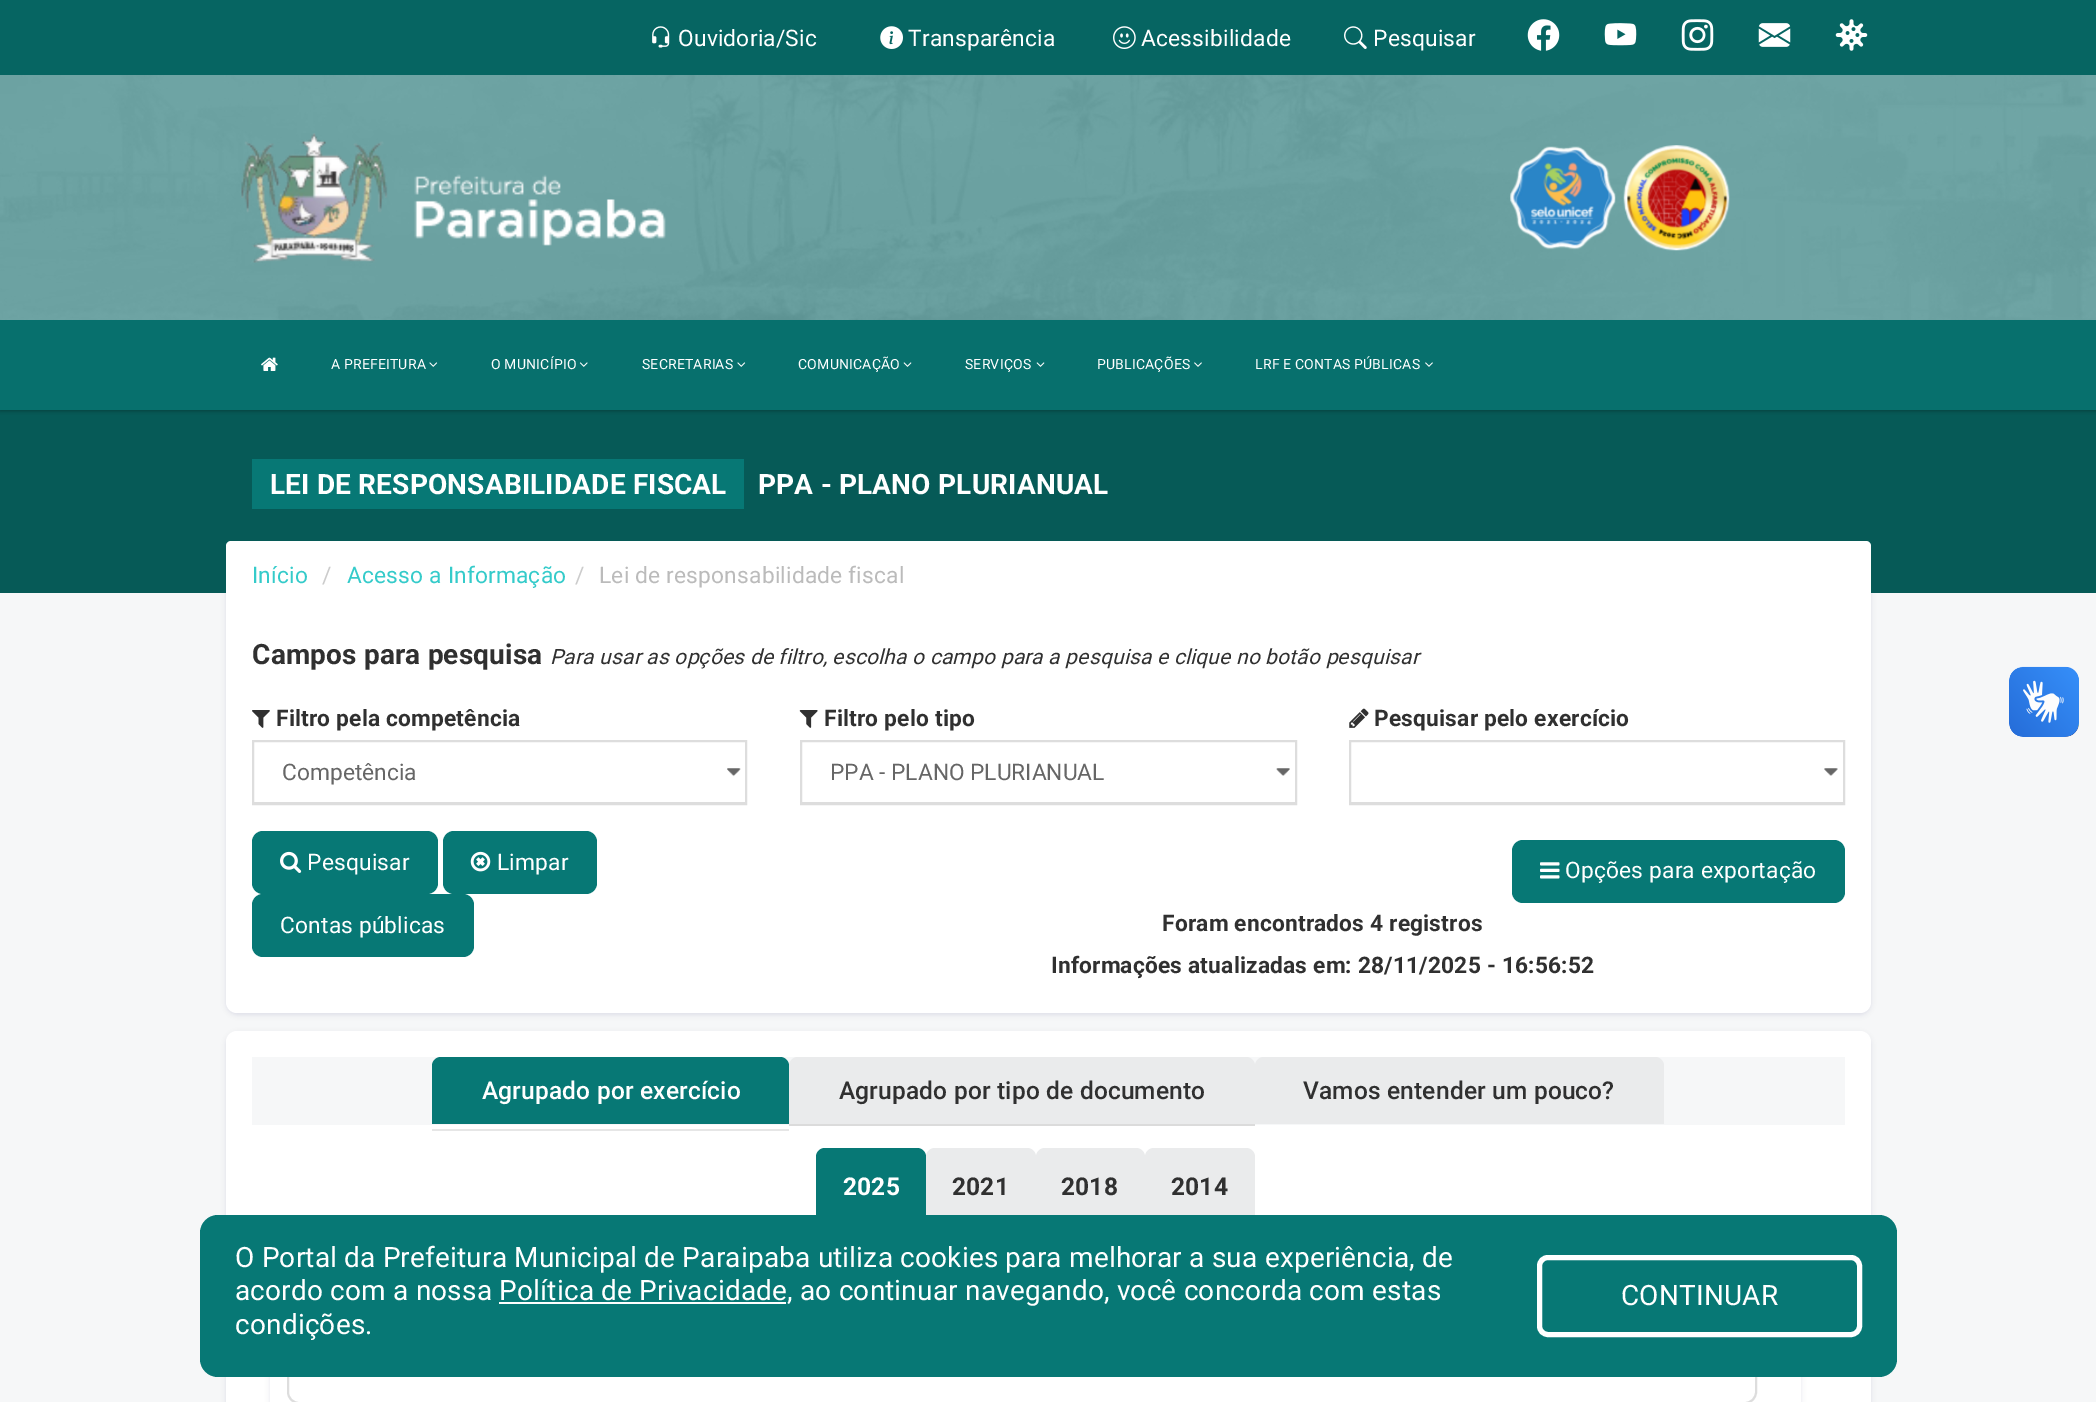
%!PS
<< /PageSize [2096 1402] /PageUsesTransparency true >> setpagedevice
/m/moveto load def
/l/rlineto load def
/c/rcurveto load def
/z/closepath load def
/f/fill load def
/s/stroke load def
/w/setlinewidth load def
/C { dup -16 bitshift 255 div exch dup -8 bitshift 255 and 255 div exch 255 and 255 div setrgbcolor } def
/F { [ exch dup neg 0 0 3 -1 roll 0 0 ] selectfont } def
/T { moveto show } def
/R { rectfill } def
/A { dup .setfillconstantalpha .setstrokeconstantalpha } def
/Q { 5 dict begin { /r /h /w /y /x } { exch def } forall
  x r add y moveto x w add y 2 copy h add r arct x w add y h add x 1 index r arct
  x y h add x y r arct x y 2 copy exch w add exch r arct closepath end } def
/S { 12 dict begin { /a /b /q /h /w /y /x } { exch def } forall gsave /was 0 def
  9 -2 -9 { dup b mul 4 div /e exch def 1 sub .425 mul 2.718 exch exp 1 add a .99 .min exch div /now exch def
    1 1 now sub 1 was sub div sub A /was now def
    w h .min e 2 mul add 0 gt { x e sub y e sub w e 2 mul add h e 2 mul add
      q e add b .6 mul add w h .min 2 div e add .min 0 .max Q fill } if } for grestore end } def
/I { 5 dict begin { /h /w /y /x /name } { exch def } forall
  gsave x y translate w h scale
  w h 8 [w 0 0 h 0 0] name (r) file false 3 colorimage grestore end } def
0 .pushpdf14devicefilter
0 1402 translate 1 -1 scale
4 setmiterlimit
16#F6F7F8 C
0 0 2096 1402 R
16#030047 C
226 543 1645 472 11 2.5 .09 S
16#FFFFFF C
226 541 1645 472 11 Q f
16#065A57 C
0 410 2096 183 R
16#000000 C
0 2 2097 409 0 2 .3 S
(1.rgb) 0 75 2096 245 I
16#066562 C
0 0 2096 75 R
(2.rgb) 652 26 18 22 I
/Roboto-Regular 22.75 F
16#FFFFFF C
678 46 m .18 0 (Ouvidoria/Sic) ashow
(3.rgb) 880 26 23 23 I
908 46 m .18 0 (Transparência) ashow
(4.rgb) 1113 26 23 23 I
1141 46 m .18 0 (Acessibilidade) ashow
(5.rgb) 1344 26 23 23 I
1373 46 m .18 0 (Pesquisar) ashow
(6.rgb) 1527 19 33 32 I
(7.rgb) 1604 23 33 23 I
(8.rgb) 1681 19 33 32 I
(9.rgb) 1758 23 33 24 I
(10.rgb) 1835 19 33 32 I
(11.rgb) 241 133 425 130 I
(12.rgb) 1510 146 106 104 I
(13.rgb) 1623 145 107 106 I
16#07706D C
0 320 2096 90 R
(14.rgb) 261 357 17 14 I
/Roboto-Regular 14 F
16#FFFFFF C
331 369 m .18 0 (A PREFEITURA) ashow
(15.rgb) 429 362 9 5 I
491 369 m .18 0 (O MUNICÍPIO) ashow
(16.rgb) 579 362 9 5 I
642 369 m .18 0 (SECRETARIAS) ashow
(15.rgb) 737 362 9 5 I
798 369 m .18 0 (COMUNICAÇÃO) ashow
(17.rgb) 903 362 9 5 I
965 369 m .18 0 (SERVIÇOS) ashow
(17.rgb) 1036 362 9 5 I
1097 369 m .18 0 (PUBLICAÇÕES) ashow
(18.rgb) 1194 362 8 5 I
1255 369 m .18 0 (LRF E CONTAS PÚBLICAS) ashow
(18.rgb) 1425 362 8 5 I
16#077875 C
252 459 492 50 R
/Roboto-Bold 28 F
16#FFFFFF C
270 494 m .18 0 (LEI DE RESPONSABILIDADE FISCAL) ashow
758 494 m .18 0 (PPA - PLANO PLURIANUAL) ashow
226 541 1645 70 5 Q f
/Roboto-Regular 22.75 F
16#35CBCA C
252 583 m .18 0 (Início) ashow
16#CCCCCC C
322 583 m .18 0 (/) ashow
16#35CBCA C
347 583 m .18 0 (Acesso a Informação) ashow
16#CCCCCC C
575 583 m .18 0 (/) ashow
16#BBBBBB C
599 583 m .18 0 (Lei de responsabilidade fiscal) ashow
/Roboto-Bold 28 F
16#303030 C
252 664 m .18 0 (Campos para pesquisa) ashow
/Roboto-Italic 21 F
550 664 m .18 0 (Para usar as opções de filtro, escolha o campo para a pesquisa e clique no botão pesquisar) ashow
(19.rgb) 252 710 18 18 I
/Roboto-Bold 22.75 F
276 726 m .18 0 (Filtro pela competência) ashow
(20.rgb) 727 768 14 9 I
16#DDDDDD C
254 802 492 1 R
2 w
253 741 493 63 rectstroke
/Roboto-Regular 22.75 F
16#666666 C
(Competência) 282 780 T
(21.rgb) 799 710 19 18 I
/Roboto-Bold 22.75 F
16#303030 C
824 726 m .18 0 (Filtro pelo tipo) ashow
(22.rgb) 1276 768 14 8 I
16#DDDDDD C
802 802 493 1 R
801 741 495 63 rectstroke
/Roboto-Regular 22.75 F
16#666666 C
(PPA - PLANO PLURIANUAL) 830 780 T
(23.rgb) 1349 708 20 20 I
/Roboto-Bold 22.75 F
16#303030 C
1374 726 m .18 0 (Pesquisar pelo exercício) ashow
(24.rgb) 1824 768 14 8 I
16#DDDDDD C
1351 802 492 1 R
1350 741 494 63 rectstroke
16#077875 C
252 831 186 63 11 Q f
(25.rgb) 280 851 22 22 I
/Roboto-Regular 22.75 F
16#FFFFFF C
307 870 m .18 0 (Pesquisar) ashow
16#077875 C
443 831 154 63 11 Q f
(26.rgb) 470 851 21 21 I
16#FFFFFF C
497 870 m .18 0 (Limpar) ashow
16#077875 C
252 894 222 63 11 Q f
16#FFFFFF C
280 933 m .18 0 (Contas públicas) ashow
16#077875 C
1512 840 333 63 11 Q f
(27.rgb) 1540 862 20 17 I
16#FFFFFF C
1565 878 m .18 0 (Opções para exportação) ashow
/Roboto-Bold 22.75 F
16#303030 C
1162 931 m .18 0 (Foram encontrados 4 registros) ashow
1051 973 m .18 0 (Informações atualizadas em: 28/11/2025 - 16:56:52) ashow
(28.rgb) 2009 666 70 71 I
(29.rgb) 2009 667 70 70 I
16#030047 C
226 1033 1645 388 11 2.5 .09 S
16#FFFFFF C
226 1031 1645 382 11 Q f
16#F6F7F8 C
252 1057 1593 68 R
16#E6E6E6 C
432 1129 357 2 R
16#077875 C
441 1057 m 339 0 l 5 0 9 4 9 9 c 0 58 l -357 0 l 0 -58 l 0 -5 4 -9 9 -9 c z f
/Roboto-Medium 24.5 F
16#FFFFFF C
482 1099 m .18 0 (Agrupado por exercício) ashow
16#DBDBDB C
789 1124 466 2 R
16#EAEBEC C
798 1057 m 448 0 l 5 0 9 4 9 9 c 0 58 l -466 0 l 0 -58 l 0 -5 4 -9 9 -9 c z f
16#303030 C
839 1099 m .18 0 (Agrupado por tipo de documento) ashow
16#EAEBEC C
1264 1057 m 391 0 l 5 0 9 4 9 9 c 0 58 l -409 0 l 0 -58 l 0 -5 4 -9 9 -9 c z f
16#303030 C
1303 1099 m .18 0 (Vamos entender um pouco?) ashow
16#030047 C
270 1229 1531 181 0 2.5 .09 S
16#077875 C
825 1148 m 92 0 l 5 0 9 4 9 9 c 0 68 l -110 0 l 0 -68 l 0 -5 4 -9 9 -9 c z f
/Roboto-Bold 24.5 F
16#FFFFFF C
843 1195 m .18 0 (2025) ashow
16#EAEBEC C
935 1148 m 92 0 l 5 0 9 4 9 9 c 0 68 l -110 0 l 0 -68 l 0 -5 4 -9 9 -9 c z f
16#303030 C
952 1195 m .18 0 (2021) ashow
16#EAEBEC C
1045 1148 m 91 0 l 5 0 9 4 9 9 c 0 68 l -109 0 l 0 -68 l 0 -5 4 -9 9 -9 c z f
16#303030 C
1061 1195 m .18 0 (2018) ashow
16#EAEBEC C
1154 1148 m 92 0 l 5 0 9 4 9 9 c 0 68 l -110 0 l 0 -68 l 0 -5 4 -9 9 -9 c z f
16#303030 C
1171 1195 m .18 0 (2014) ashow
16#FFFFFF C
270 1377 1531 25 R
16#DDDDDD C
288 1251 1468 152 11 Q s
16#077875 C
200 1215 1697 162 18 Q f
/Roboto-Regular 28 F
16#FFFFFF C
235 1267 m .18 0 (O Portal da Prefeitura Municipal de Paraipaba utiliza cookies para melhorar a sua experiência, de) ashow
235 1300 m .18 0 (acordo com a nossa Política de Privacidade, ao continuar navegando, você concorda com estas) ashow
499 1302 287 2 R
235 1334 m .18 0 (condições.) ashow
5 w
1539.5 1257.5 320 77 8.5 Q s
1621 1305 m .18 0 (CONTINUAR) ashow
.poppdf14devicefilter showpage
